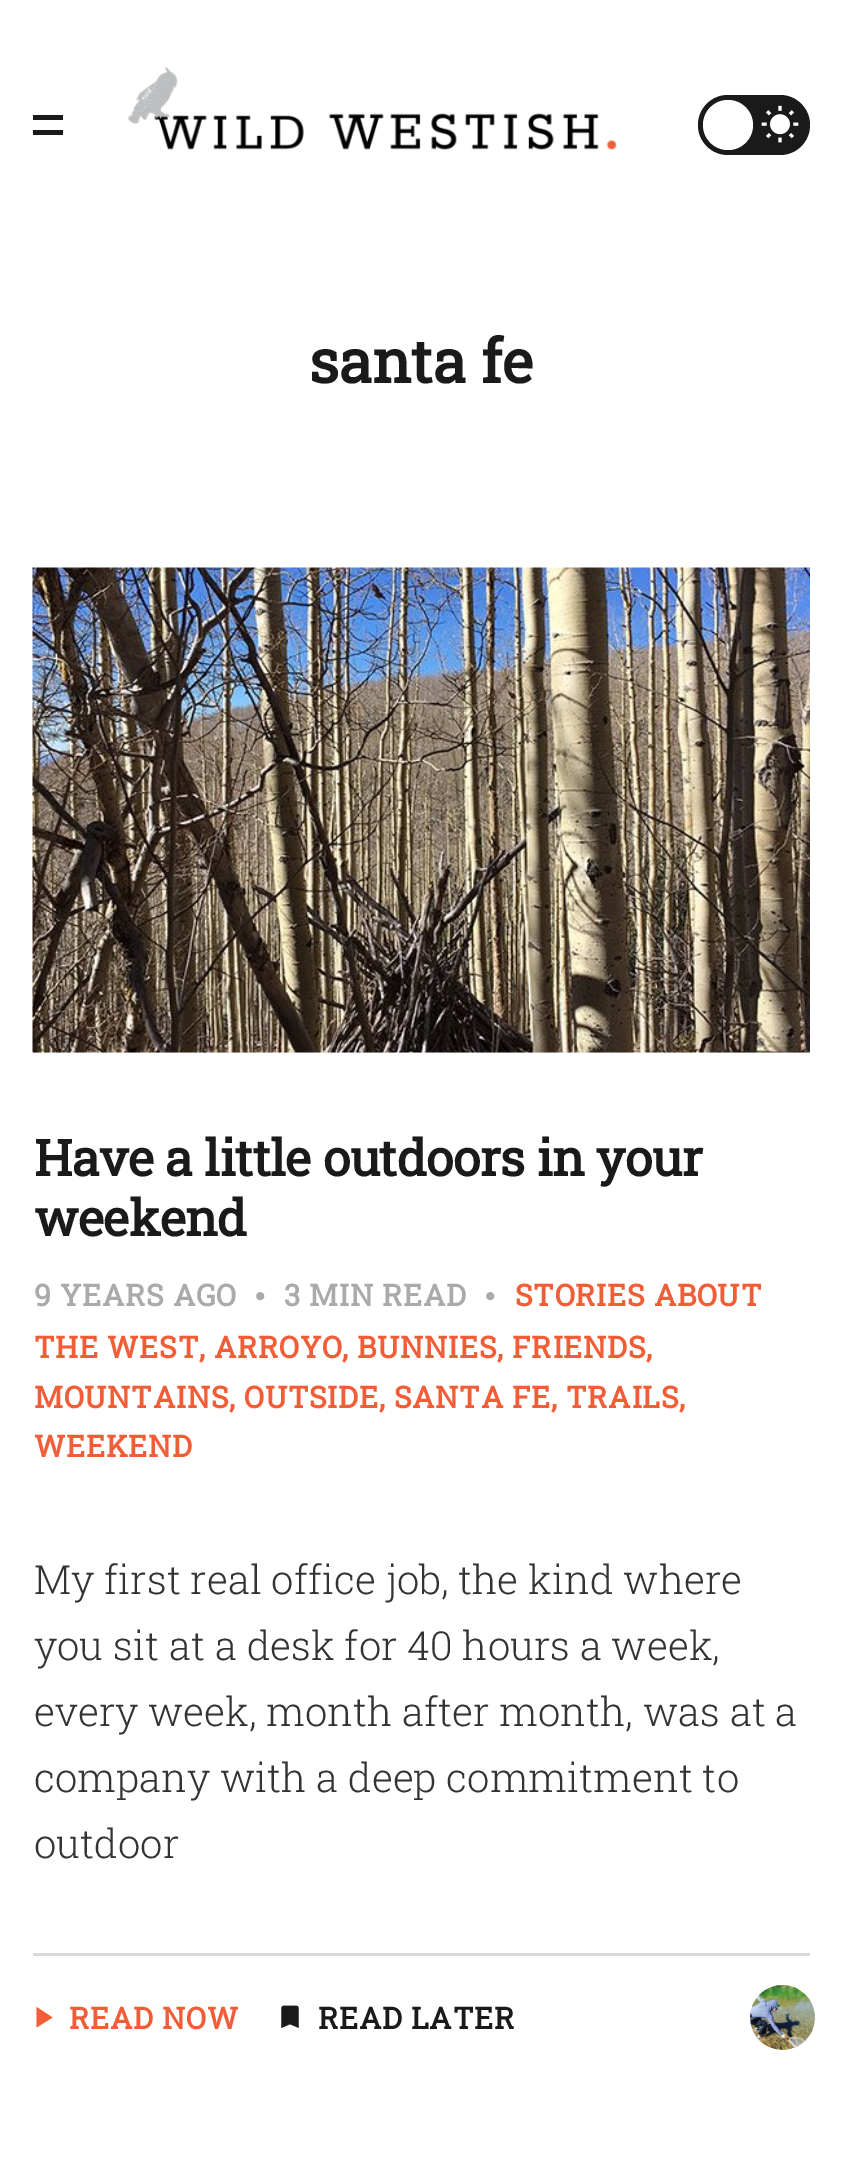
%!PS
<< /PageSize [841 2170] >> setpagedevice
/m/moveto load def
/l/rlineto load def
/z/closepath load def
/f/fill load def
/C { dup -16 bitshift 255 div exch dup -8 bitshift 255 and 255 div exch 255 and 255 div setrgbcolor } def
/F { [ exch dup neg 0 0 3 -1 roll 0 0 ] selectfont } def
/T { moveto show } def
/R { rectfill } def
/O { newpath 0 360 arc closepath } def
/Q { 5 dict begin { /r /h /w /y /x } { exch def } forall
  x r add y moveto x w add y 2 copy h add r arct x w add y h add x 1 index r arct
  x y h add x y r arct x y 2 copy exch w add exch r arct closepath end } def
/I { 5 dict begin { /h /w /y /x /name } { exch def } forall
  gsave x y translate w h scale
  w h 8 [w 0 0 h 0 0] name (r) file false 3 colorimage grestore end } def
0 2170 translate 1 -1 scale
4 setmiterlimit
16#FFFFFF C
0 0 841 2170 R
16#1A1A1A C
33 115 30 5 R
33 130 30 5 R
(1.rgb) 128 66 489 84 I
698 95 112 60 30 Q f
16#FFFFFF C
728 125 25 O f
(2.rgb) 761 105 38 38 I
/RobotoSlab-Bold 60 F
16#1A1A1A C
(santa fe) 309 383 T
16#F1F1F1 C
33 1052 777 1 R
(3.rgb) 32 567 778 486 I
/RobotoSlab-Bold 50 F
16#1A1A1A C
34 1176 m -.5 0 (Have a little outdoors in your) ashow
34 1236 m -.5 0 (weekend) ashow
/RobotoSlab-Bold 30 F
16#AAAAAA C
34 1306 m .75 0 (9 YEARS AGO) ashow
/LiberationSerif-Bold 30 F
255 1306 m .75 0 (•) ashow
/RobotoSlab-Bold 30 F
284 1306 m .75 0 (3 MIN READ) ashow
/LiberationSerif-Bold 30 F
485 1306 m .75 0 (•) ashow
/RobotoSlab-Bold 30 F
16#F15D36 C
515 1306 m .75 0 (STORIES ABOUT) ashow
34 1358 m .75 0 (THE WEST, ARROYO, BUNNIES, FRIENDS,) ashow
34 1408 m .75 0 (MOUNTAINS, OUTSIDE, SANTA FE, TRAILS,) ashow
34 1457 m .75 0 (WEEKEND) ashow
/RobotoSlab-Light 40 F
16#333333 C
(My first real office job, the kind where) 34 1594 T
(you sit at a desk for 40 hours a week,) 34 1660 T
(every week, month after month, was at a) 34 1726 T
(company with a deep commitment to) 34 1792 T
(outdoor) 34 1858 T
16#D9D9D9 C
33 1953 777 3 R
16#F15D36 C
36.5 2007 m 0 20.5 l 16 -10 l z f
/RobotoSlab-Bold 30 F
69 2029 m .75 0 (READ NOW) ashow
(4.rgb) 281 2005 18 23 I
16#1A1A1A C
318 2029 m .75 0 (READ LATER) ashow
(5.rgb) 750 1985 65 65 I
showpage
